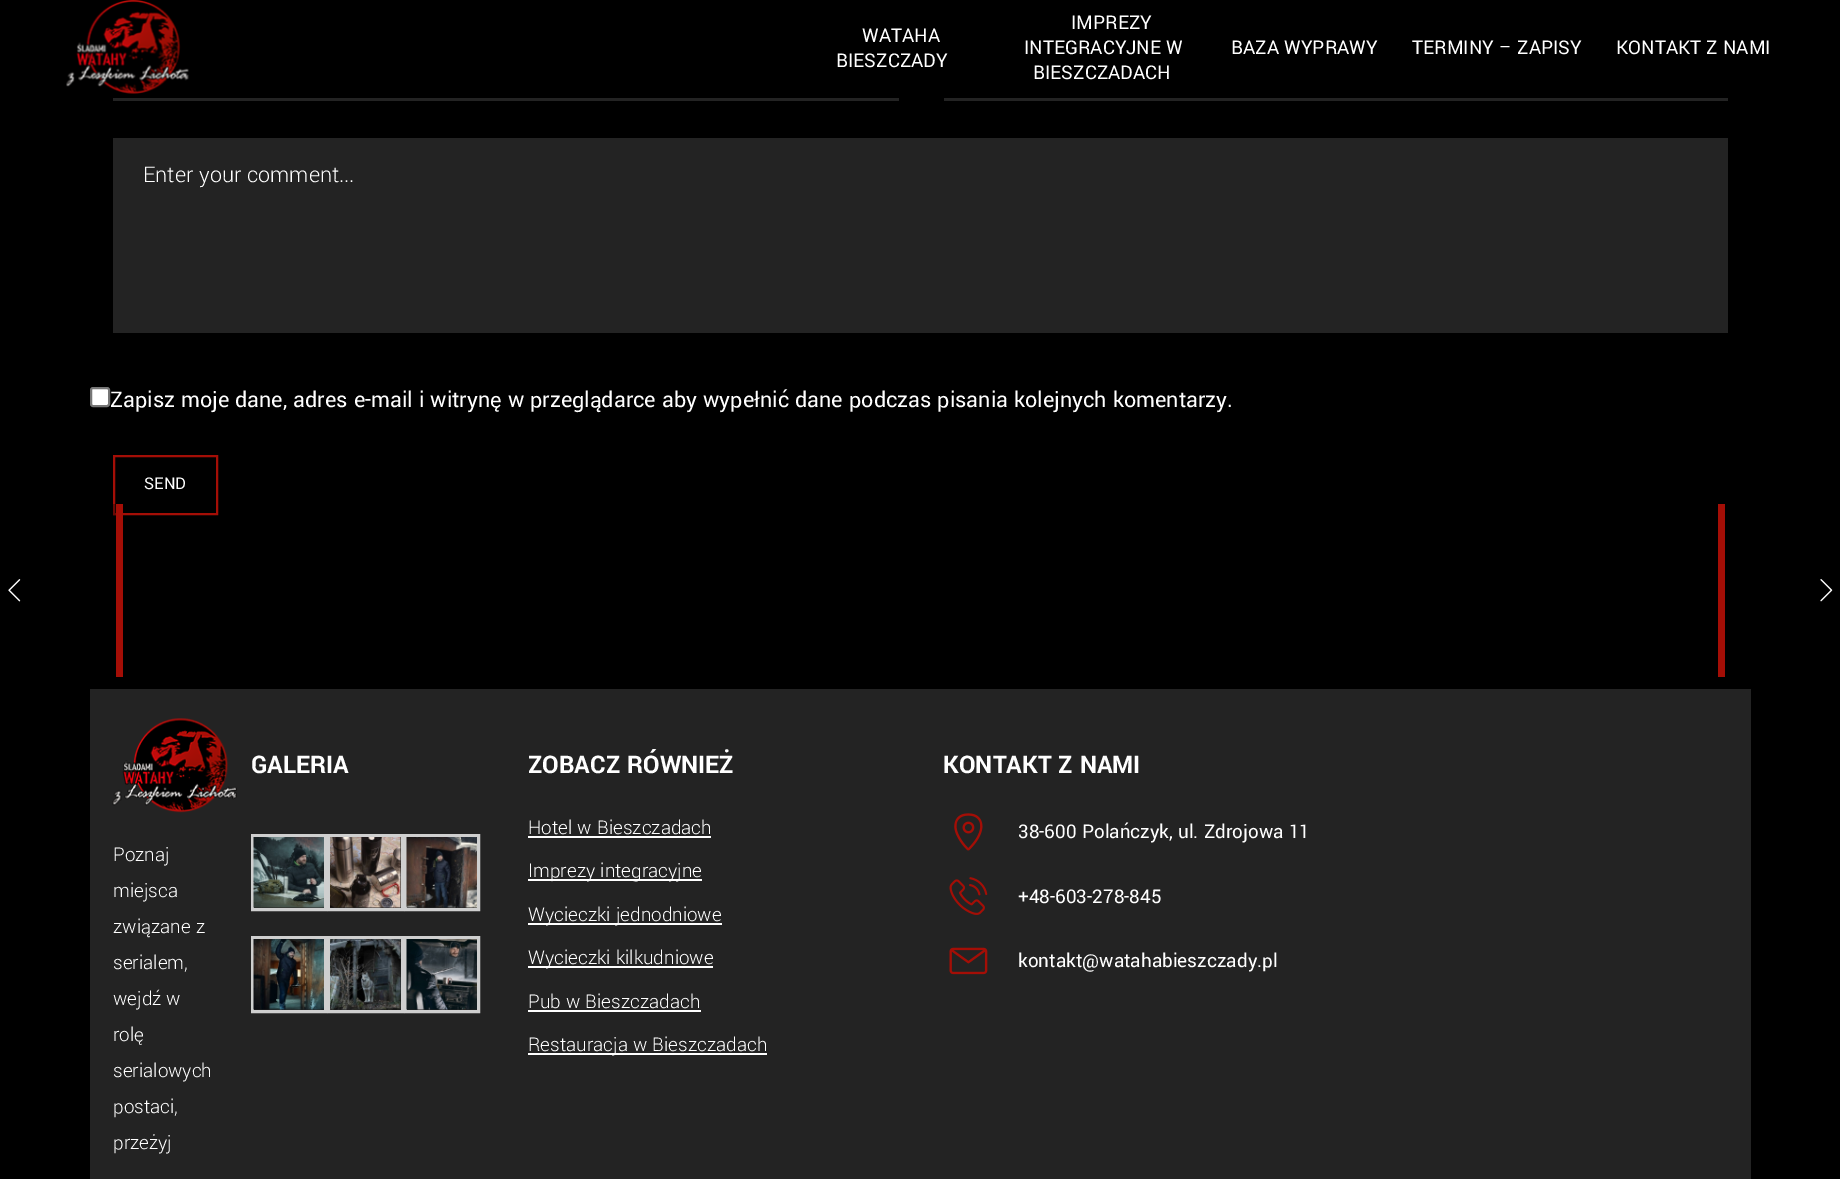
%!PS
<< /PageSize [1840 1179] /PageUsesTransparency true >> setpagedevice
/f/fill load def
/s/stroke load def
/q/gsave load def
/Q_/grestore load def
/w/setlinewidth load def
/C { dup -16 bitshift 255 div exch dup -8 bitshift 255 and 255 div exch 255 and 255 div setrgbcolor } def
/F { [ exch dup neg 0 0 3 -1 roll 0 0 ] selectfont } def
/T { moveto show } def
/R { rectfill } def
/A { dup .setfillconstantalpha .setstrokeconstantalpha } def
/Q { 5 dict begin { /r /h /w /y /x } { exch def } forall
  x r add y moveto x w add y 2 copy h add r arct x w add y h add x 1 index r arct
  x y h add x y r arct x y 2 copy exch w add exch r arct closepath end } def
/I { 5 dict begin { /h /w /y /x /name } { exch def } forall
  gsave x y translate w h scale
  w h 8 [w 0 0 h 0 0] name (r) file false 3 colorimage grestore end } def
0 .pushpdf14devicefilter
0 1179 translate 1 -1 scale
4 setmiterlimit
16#000000 C
0 0 1840 1179 R
(1.rgb) 66 0 123 94 I
/Yantramanav-Regular 21 F
16#FFFFFF C
(WATAHA) 862 42 T
(BIESZCZADY) 836 67 T
(IMPREZY) 1071 29 T
(INTEGRACYJNE W) 1024 54 T
(BIESZCZADACH) 1033 79 T
(BAZA WYPRAWY) 1231 54 T
(TERMINY – ZAPISY) 1412 54 T
(KONTAKT Z NAMI) 1616 54 T
16#232323 C
113 98 786 3 R
944 98 784 3 R
113 138 1615 195 R
/Yantramanav-Light 24 F
16#FFFFFF C
(Enter your comment...) 143 182 T
91 388 18 18 2 Q q f Q_
16#767676 C
2 w
s
/Yantramanav-Regular 24 F
16#FFFFFF C
(Zapisz moje dane, adres e-mail i witrynę w przeglądarce aby wypełnić dane podczas pisania kolejnych komentarzy.) 110 407 T
16#A40E06 C
114 456 103 58 rectstroke
/Yantramanav-Regular 18 F
16#FFFFFF C
(SEND) 144 489 T
16#A40E06 C
116 504 7 173 R
0.35 A
16#000000 C
113 504 3 11 R
1 A
(2.rgb) 8 579 13 23 I
16#A40E06 C
1718 504 7 173 R
(3.rgb) 1820 579 13 23 I
16#232323 C
90 689 1661 490 R
(4.rgb) 112 718 125 95 I
/Yantramanav-Light 21 F
16#FFFFFF C
(Poznaj) 113 861 T
(miejsca) 113 897 T
(związane z) 113 933 T
(serialem,) 113 969 T
(wejdź w) 113 1005 T
(rolę) 113 1041 T
(serialowych) 113 1077 T
(postaci,) 113 1113 T
(przeżyj) 113 1149 T
/Yantramanav-Bold 27 F
(GALERIA) 251 773 T
16#CFCFCF C
3 w
252.5 835.5 73 74 rectstroke
(5.rgb) 253 837 71 71 I
328.5 835.5 74 74 rectstroke
(6.rgb) 330 837 71 71 I
405.5 835.5 73 74 rectstroke
(7.rgb) 406 837 71 71 I
252.5 937.5 73 74 rectstroke
(8.rgb) 253 939 71 71 I
328.5 937.5 74 74 rectstroke
(9.rgb) 330 939 71 71 I
405.5 937.5 73 74 rectstroke
(10.rgb) 406 939 71 71 I
16#FFFFFF C
(ZOBACZ RÓWNIEŻ) 528 773 T
/Yantramanav-Light 21 F
(Hotel w Bieszczadach) 528 834 T
528 836 183 2 R
528 879 174 2 R
(Imprezy integracyjne) 528 877 T
528 923 194 2 R
(Wycieczki jednodniowe) 528 921 T
528 966 185 2 R
(Wycieczki kilkudniowe) 528 964 T
(Pub w Bieszczadach) 528 1008 T
528 1010 173 2 R
528 1053 239 2 R
(Restauracja w Bieszczadach) 528 1051 T
/Yantramanav-Bold 27 F
(KONTAKT Z NAMI) 943 773 T
(11.rgb) 954 813 29 38 I
/Yantramanav-Regular 21 F
(38-600 Polańczyk, ul. Zdrojowa 11) 1018 838 T
(12.rgb) 949 877 39 38 I
(+48-603-278-845) 1018 903 T
(13.rgb) 949 947 39 28 I
(kontakt@watahabieszczady.pl) 1018 967 T
.poppdf14devicefilter showpage
